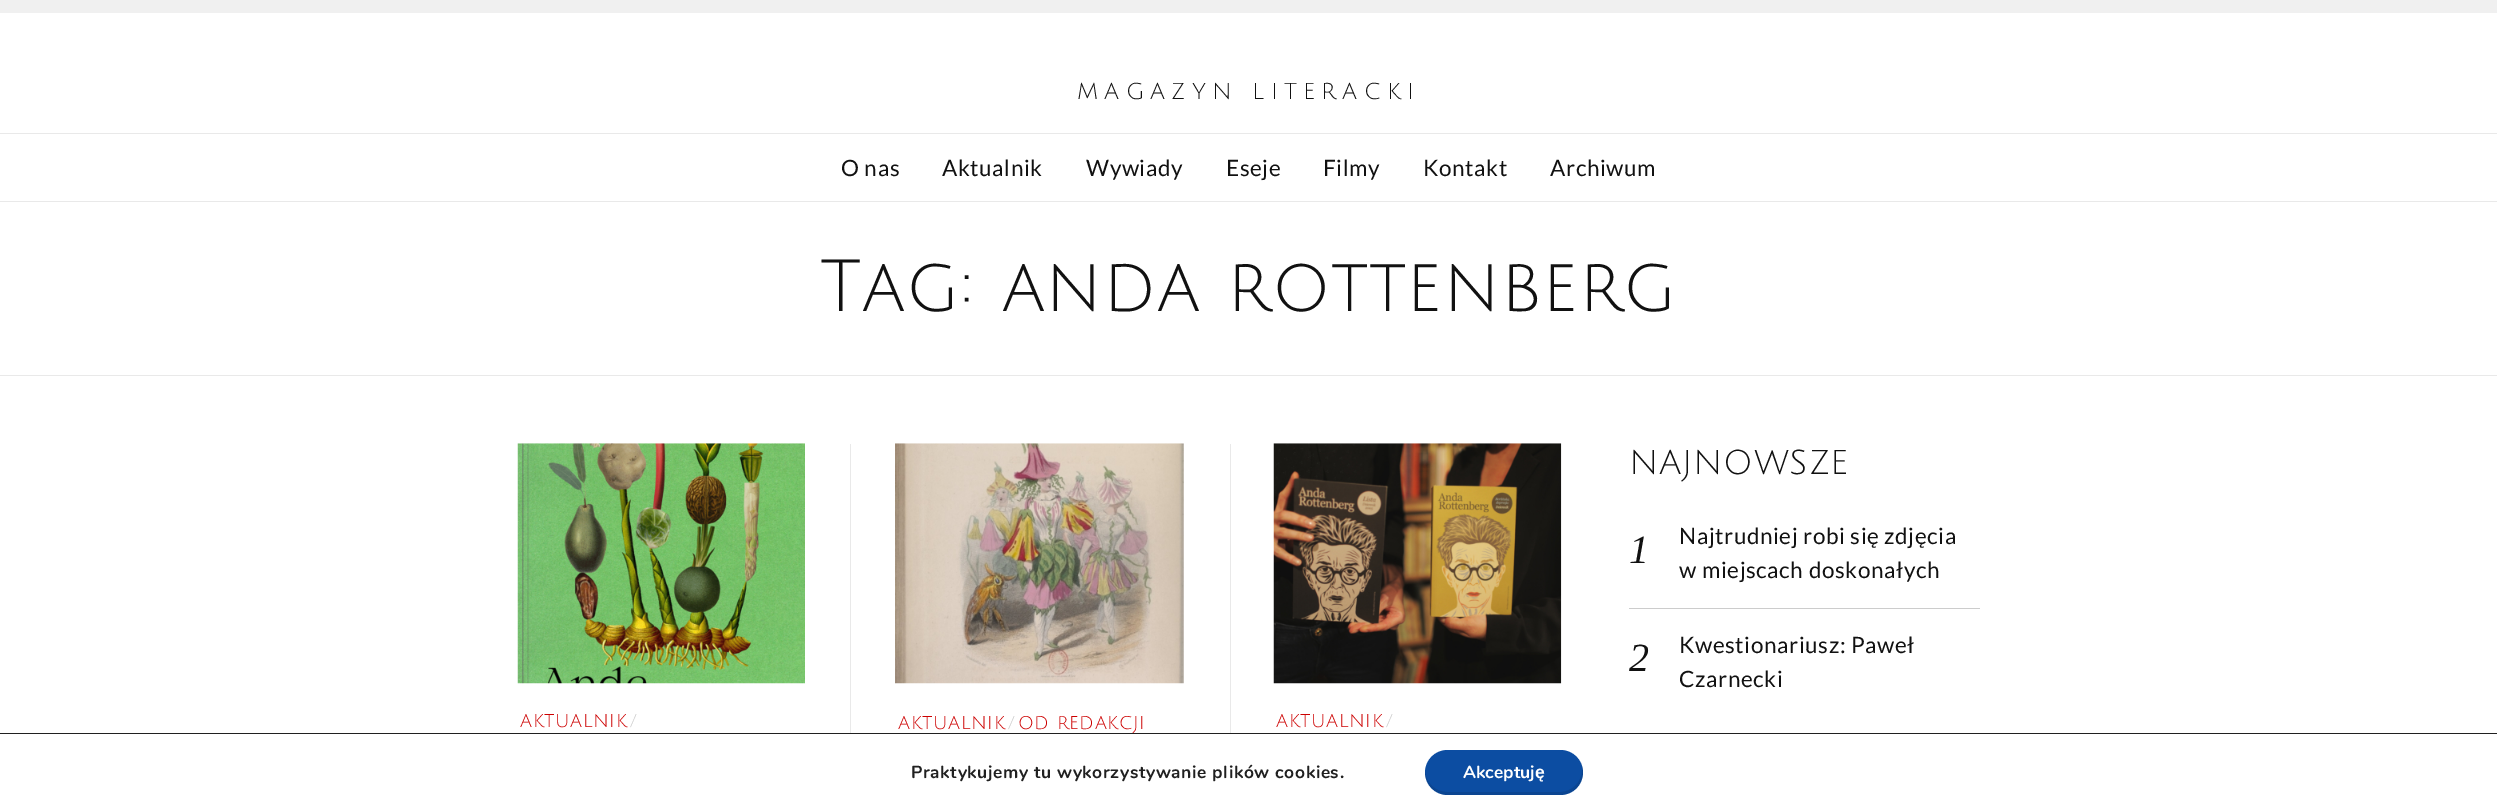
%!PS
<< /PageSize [2497 811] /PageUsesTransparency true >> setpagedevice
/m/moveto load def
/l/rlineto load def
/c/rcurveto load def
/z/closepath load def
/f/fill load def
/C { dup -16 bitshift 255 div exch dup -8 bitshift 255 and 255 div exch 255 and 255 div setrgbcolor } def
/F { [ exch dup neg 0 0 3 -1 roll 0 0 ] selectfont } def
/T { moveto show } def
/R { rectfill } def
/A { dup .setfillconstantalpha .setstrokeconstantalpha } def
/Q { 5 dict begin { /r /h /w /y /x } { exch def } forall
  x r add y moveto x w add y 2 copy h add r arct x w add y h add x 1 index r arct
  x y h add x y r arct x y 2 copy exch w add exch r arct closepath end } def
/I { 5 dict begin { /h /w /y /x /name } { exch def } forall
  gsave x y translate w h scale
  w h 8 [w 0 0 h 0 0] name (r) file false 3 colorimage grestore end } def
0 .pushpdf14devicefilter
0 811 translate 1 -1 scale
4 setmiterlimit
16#FFFFFF C
0 0 2497 811 R
16#F0F0F0 C
0 0 2497 13 R
/JuliusSansOne-Regular 22.5 F
16#111111 C
1077 99 m 6.25 0 (MAGAZYN LITERACKI) ashow
16#E9E9E9 C
0 133 2497 1 R
0 201 2497 1 R
/Lato-Regular 22.5 F
16#111111 C
841 176 m .6 0 (O nas) ashow
942 176 m .6 0 (Aktualnik) ashow
1086 176 m .6 0 (Wywiady) ashow
1226 176 m .6 0 (Eseje) ashow
1323 176 m .6 0 (Filmy) ashow
1423 176 m .6 0 (Kontakt) ashow
1550 176 m .6 0 (Archiwum) ashow
16#E9E9E9 C
0 375 2497 1 R
/JuliusSansOne-Regular 72 F
16#111111 C
820 311 m .6 0 (Tag: anda rottenberg) ashow
/JuliusSansOne-Regular 33.75 F
1629 474 m .6 0 (NAJNOWSZE) ashow
/LiberationSerif-Italic 40 F
1629 563 m .6 0 (1) ashow
/Lato-Regular 22.5 F
1679 544 m .6 0 (Najtrudniej robi się zdjęcia) ashow
1679 578 m .6 0 (w miejscach doskonałych) ashow
16#CCCCCC C
1629 608 351 1 R
/LiberationSerif-Italic 40 F
16#111111 C
1629 671 m .6 0 (2) ashow
/Lato-Regular 22.5 F
1679 653 m .6 0 (Kwestionariusz: Paweł) ashow
1679 687 m .6 0 (Czarnecki) ashow
(1.rgb) 517 443 288 241 I
/JuliusSansOne-Regular 18 F
16#CC0000 C
520 727 m .6 0 (AKTUALNIK) ashow
16#CCCCCC C
630 727 m .6 0 (/) ashow
16#E9E9E9 C
850 444 1 289 R
1230 444 1 289 R
(2.rgb) 1273 443 289 241 I
16#CC0000 C
1276 727 m .6 0 (AKTUALNIK) ashow
16#CCCCCC C
1386 727 m .6 0 (/) ashow
(3.rgb) 895 443 289 241 I
16#CC0000 C
898 729 m .6 0 (AKTUALNIK) ashow
16#CCCCCC C
1008 729 m .6 0 (/) ashow
16#CC0000 C
1018 729 m .6 0 (OD REDAKCJI) ashow
16#202020 C
0 733 2497 1 R
/Nunito-Bold 17.5 F
911 778 m .6 0 (Praktykujemy tu wykorzystywanie plików cookies.) ashow
16#0C4DA2 C
1425 750 158 45 22.5 Q f
0.1 A
16#000000 C
1425 771 m 0 1 l 0 13 10 23 23 23 c 112 0 l 13 0 23 -10 23 -23 c 0 -3 -1 -7 -2 -10 c 1 3 1 5 1 8 c 0 12 -10 22 -22 22 c -112 0 l -13 0 -22 -9 -23 -21 c z f
1 A
16#FFFFFF C
(Akceptuj) 1463 778 T
/LiberationSans-Bold 17.5 F
(ę) 1535 778 T
.poppdf14devicefilter showpage
